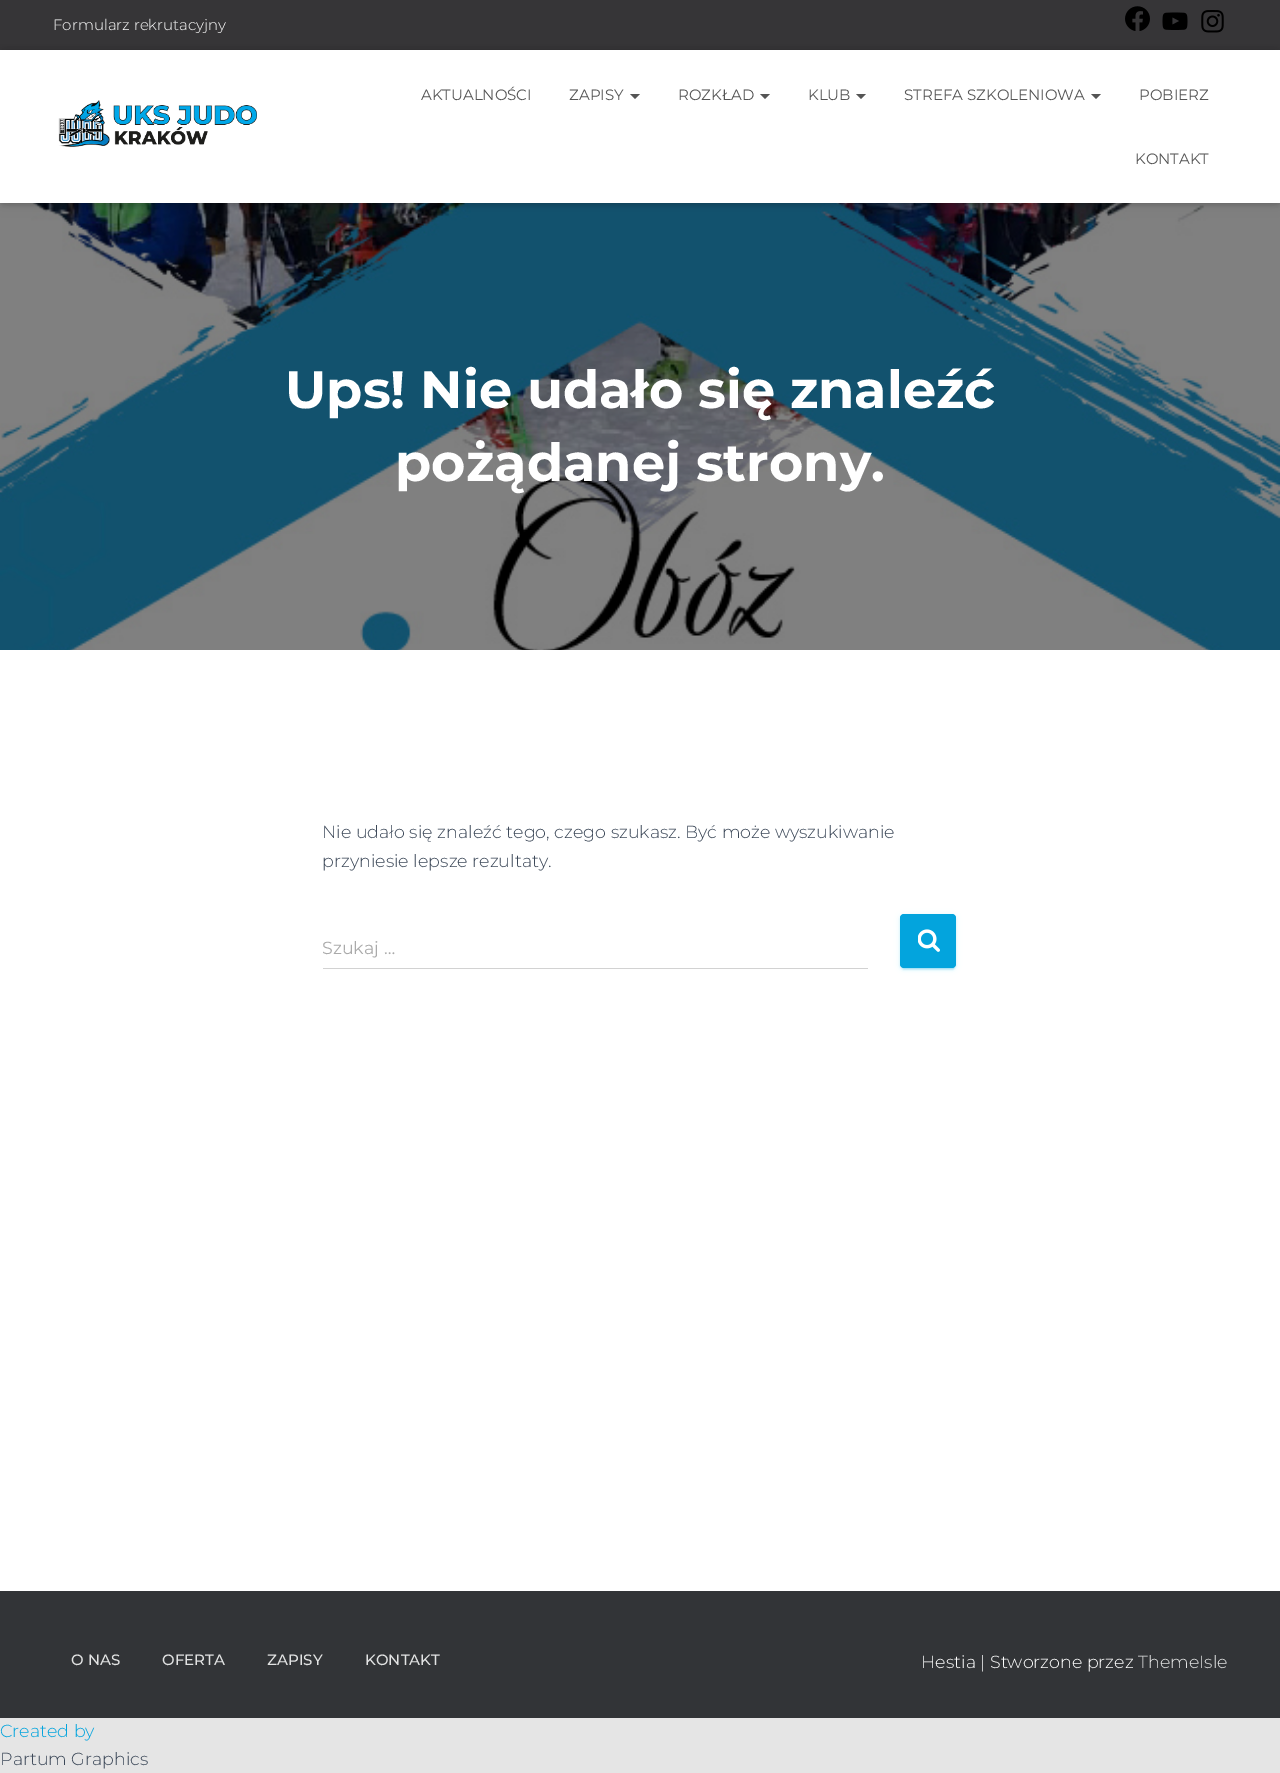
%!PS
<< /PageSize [1280 1773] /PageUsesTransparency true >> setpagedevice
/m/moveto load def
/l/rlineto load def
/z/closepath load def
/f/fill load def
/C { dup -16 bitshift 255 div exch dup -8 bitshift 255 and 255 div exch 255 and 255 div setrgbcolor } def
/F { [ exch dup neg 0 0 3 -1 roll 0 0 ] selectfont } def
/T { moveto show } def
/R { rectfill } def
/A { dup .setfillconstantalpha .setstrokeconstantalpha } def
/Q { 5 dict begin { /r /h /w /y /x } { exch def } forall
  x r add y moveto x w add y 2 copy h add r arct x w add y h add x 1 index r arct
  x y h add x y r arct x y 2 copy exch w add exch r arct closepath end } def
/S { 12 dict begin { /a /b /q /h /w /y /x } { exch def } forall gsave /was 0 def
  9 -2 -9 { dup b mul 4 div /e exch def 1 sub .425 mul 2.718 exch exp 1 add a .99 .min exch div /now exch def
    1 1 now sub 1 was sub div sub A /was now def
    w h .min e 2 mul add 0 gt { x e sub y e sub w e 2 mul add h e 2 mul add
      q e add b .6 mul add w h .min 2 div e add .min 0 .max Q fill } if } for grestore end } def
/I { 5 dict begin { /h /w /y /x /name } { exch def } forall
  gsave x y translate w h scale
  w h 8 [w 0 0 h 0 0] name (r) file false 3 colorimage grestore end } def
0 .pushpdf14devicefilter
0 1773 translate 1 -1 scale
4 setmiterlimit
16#E5E5E5 C
0 0 1280 1773 R
16#363537 C
0 0 1280 50 R
/Montserrat-Light 15 F
16#FFFFFF C
(Formularz rekrutacyjny) 53 30 T
(1.rgb) 1125 6 25 25 I
(2.rgb) 1162 12 26 18 I
(3.rgb) 1201 10 23 23 I
(5.rgb) 0 203 1280 447 I
16#000000 C
3 58 1275 147 0 3 .1 S
0 51 1280 153 0 6 .12 S
8 59 1265 137 0 6 .42 S
16#FFFFFF C
0 50 1280 153 R
(4.rgb) 58 100 199 48 I
/Montserrat-Regular 15 F
16#555555 C
(AKTUALNOŚCI) 421 100 T
(ZAPISY) 569 100 T
630 94 m 10 0 l -5 5 l z f
(ROZKŁAD) 678 100 T
760 94 m 10 0 l -5 5 l z f
(KLUB) 808 100 T
856 94 m 10 0 l -5 5 l z f
(STREFA SZKOLENIOWA) 904 100 T
1091 94 m 10 0 l -5 5 l z f
(POBIERZ) 1139 100 T
(KONTAKT) 1135 164 T
/Montserrat-Bold 52.5 F
16#FFFFFF C
(Ups! Nie udało się znaleźć) 285 408 T
(pożądanej strony.) 395 481 T
0 650 1280 941 R
/Montserrat-Light 17.5 F
16#3C4858 C
(Nie udało się znaleźć tego, czego szukasz. Być może wyszukiwanie) 322 838 T
(przyniesie lepsze rezultaty.) 322 867 T
/Montserrat-Regular 17.5 F
16#AAAAAA C
(Szukaj …) 322 954 T
16#D2D2D2 C
323 968 545 1 R
16#03A4DD C
900 915 56 54 4 3 .12 S
903 920 51 49 1 .5 .2 S
900 916 56 54 4 1 .14 S
900 914 56 54 4 Q f
(6.rgb) 918 929 22 23 I
16#323437 C
0 1591 1280 127 R
/Montserrat-Medium 15 F
16#E2E3E3 C
(O NAS) 71 1665 T
(OFERTA) 162 1665 T
(ZAPISY) 267 1665 T
(KONTAKT) 365 1665 T
/Montserrat-Light 17.5 F
16#FFFFFF C
(Hestia | Stworzone przez) 921 1668 T
16#E2E3E3 C
(ThemeIsle) 1138 1668 T
16#03A4DD C
(Created by) 0 1737 T
16#3C4858 C
(Partum Graphics) 0 1765 T
.poppdf14devicefilter showpage
